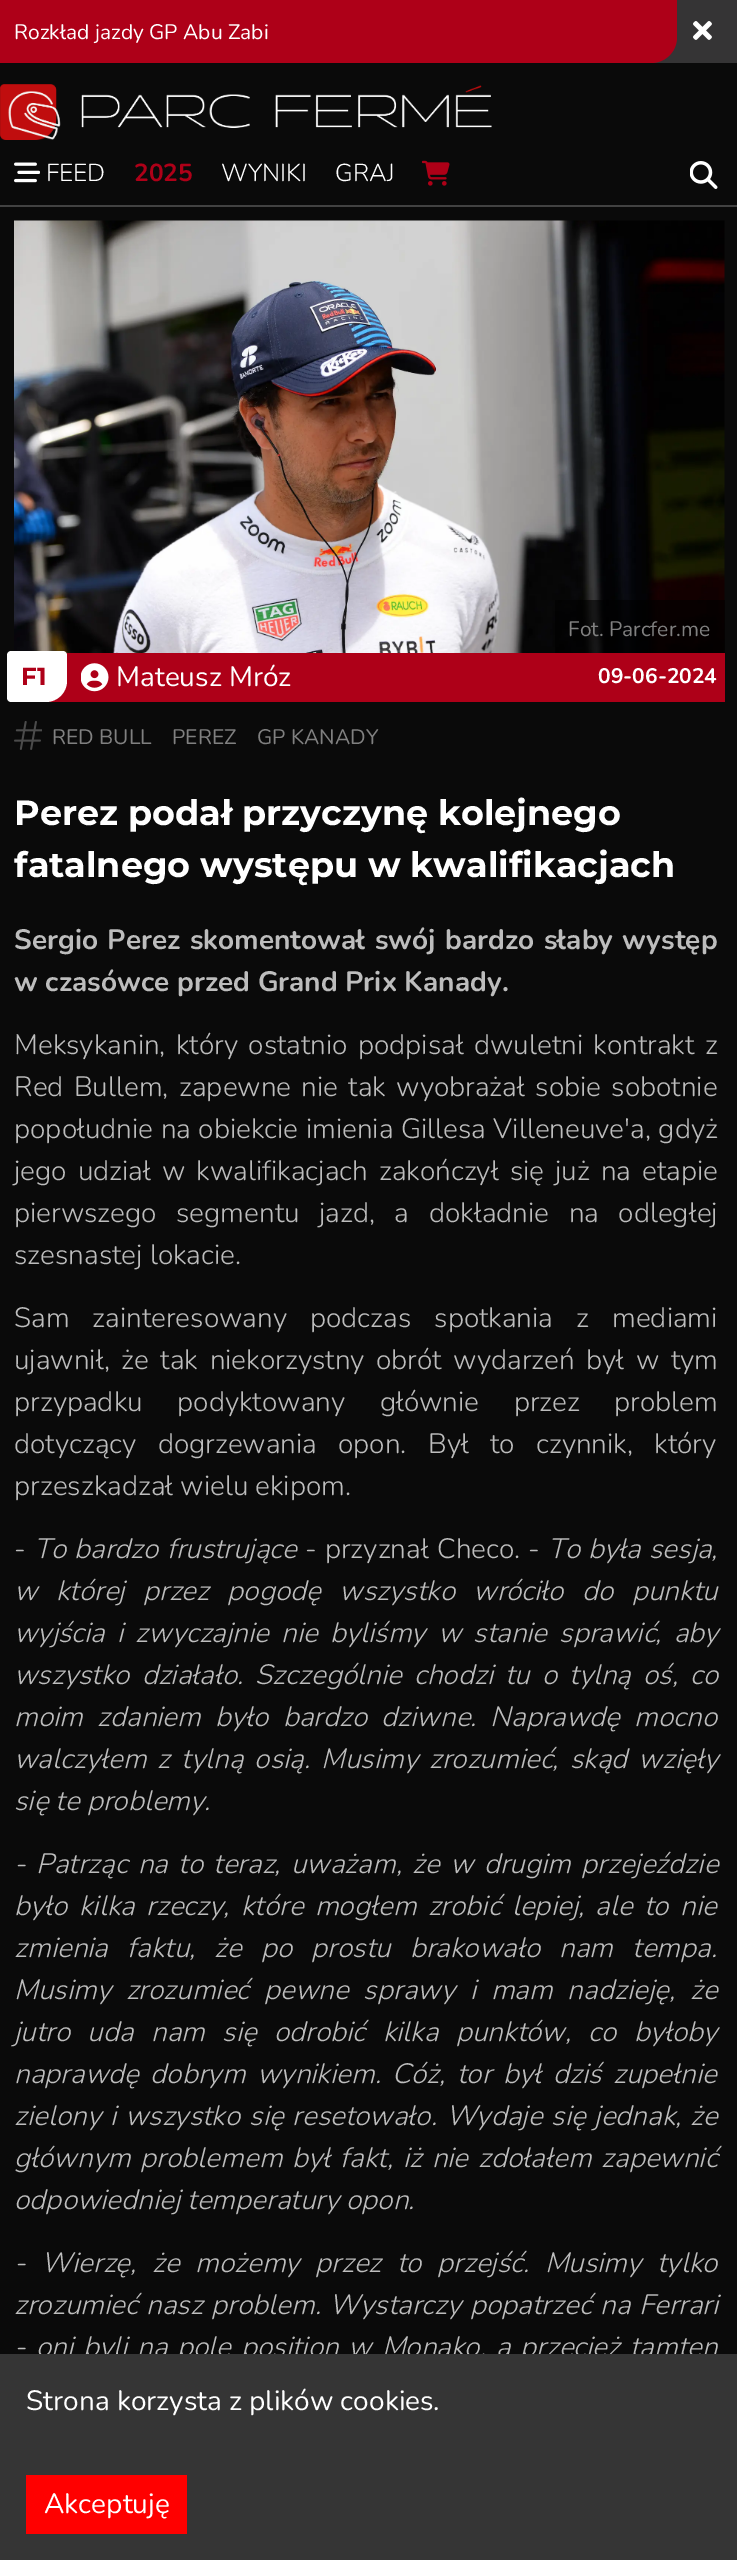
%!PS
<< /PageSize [737 2560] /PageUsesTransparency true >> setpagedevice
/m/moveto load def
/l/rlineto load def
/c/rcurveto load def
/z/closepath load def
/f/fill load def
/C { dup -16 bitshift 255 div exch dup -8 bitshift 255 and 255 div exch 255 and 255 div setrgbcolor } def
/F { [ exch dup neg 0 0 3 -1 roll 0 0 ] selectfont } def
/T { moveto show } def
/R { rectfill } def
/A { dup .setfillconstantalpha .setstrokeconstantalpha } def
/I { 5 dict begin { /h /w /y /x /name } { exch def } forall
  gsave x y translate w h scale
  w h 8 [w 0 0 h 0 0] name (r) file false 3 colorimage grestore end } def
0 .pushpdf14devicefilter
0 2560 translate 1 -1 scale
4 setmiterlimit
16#0A0A0A C
0 0 737 2560 R
16#353435 C
651 0 86 63 R
16#AE0018 C
0 0 m 677 0 l 0 37 l 0 14.5 -11.5 26 -26 26 c -651 0 l z f
/Nunito-Regular 21 F
16#FFFFFF C
(Rozkład jazdy GP Abu Zabi) 14 39 T
(1.rgb) 693 21 19 19 I
16#424242 C
0 205 737 2 R
(2.rgb) 0 84 492 56 I
(3.rgb) 14 162 26 21 I
/Nunito-Light 24.5 F
16#FFFFFF C
(FEED) 46 181 T
/Nunito-Bold 24.5 F
16#AE0018 C
(2025) 134 181 T
/Nunito-Light 24.5 F
16#FFFFFF C
(WYNIKI) 221 181 T
(GRAJ) 335 181 T
(4.rgb) 422 160 28 26 I
(5.rgb) 690 161 28 28 I
(6.rgb) 14 220 711 433 I
0.6 A
16#000000 C
555 600 170 53 R
/Nunito-Regular 21 F
1 A
16#808080 C
(Fot. Parcfer.me) 568 636 T
16#AE0018 C
46 653 679 49 R
16#FFFFFF C
11 651 m 52 0 l 2 0 4 2 4 4 c 0 26 l 0 11.5 -9.5 21 -21 21 c -35 0 l -2 0 -4 -2 -4 -4 c 0 -43 l 0 -2 2 -4 4 -4 c z f
/Montserrat-Bold 24.5 F
16#AE0018 C
(F1) 21 685 T
(7.rgb) 81 663 28 29 I
/Nunito-Regular 28 F
16#FFFFFF C
(Mateusz Mróz) 116 686 T
/Nunito-Bold 21 F
(09-06-2024) 598 683 T
(8.rgb) 14 721 28 29 I
/Nunito-Regular 21 F
16#808080 C
(RED BULL) 52 744 T
(PEREZ) 172 744 T
(GP KANADY) 257 744 T
/Montserrat-Bold 35 F
16#FFFFFF C
(Perez podał przyczynę kolejnego) 14 825 T
(fatalnego występu w kwalifikacjach) 14 877 T
/Nunito-Bold 28 F
16#BDBDBD C
14 949 m 1.75 0 32 (Sergio Perez skomentował swój bardzo słaby występ) widthshow
(w czasówce przed Grand Prix Kanady.) 14 991 T
/Nunito-Light 28 F
14 1054 m 3.25 0 32 (Meksykanin, który ostatnio podpisał dwuletni kontrakt z) widthshow
14 1096 m 3.25 0 32 (Red Bullem,) widthshow
179 1096 m 3.25 0 32 (zapewne nie tak wyobrażał sobie sobotnie) widthshow
14 1138 m .5 0 32 (popołudnie na obiekcie imienia Gillesa Villeneuve'a, gdyż) widthshow
14 1180 m 4 0 32 (jego udział w kwalifikacjach zakończył się już na etapie) widthshow
14 1222 m 12.5 0 32 (pierwszego segmentu jazd, a dokładnie na odległej) widthshow
(szesnastej lokacie.) 14 1264 T
14 1327 m 16 0 32 (Sam zainteresowany podczas spotkania z mediami) widthshow
14 1369 m 4.5 0 32 (ujawnił, że tak niekorzystny obrót wydarzeń był w tym) widthshow
14 1411 m 27.5 0 32 (przypadku podyktowany głównie przez problem) widthshow
14 1453 m 14 0 32 (dotyczący dogrzewania opon.) widthshow
428 1453 m 14 0 32 (Był to czynnik, który) widthshow
(przeszkadzał wielu ekipom.) 14 1495 T
(-) 14 1558 T
/Nunito-LightItalic 28 F
34 1558 m 1 0 32 (To bardzo frustrujące) widthshow
/Nunito-Light 28 F
305 1558 m 1 0 32 (- przyznał Checo. -) widthshow
/Nunito-LightItalic 28 F
548 1558 m 1 0 32 (To była sesja,) widthshow
14 1600 m 11.25 0 32 (w której przez pogodę wszystko wróciło do punktu) widthshow
14 1642 m 5 0 32 (wyjścia i zwyczajnie nie byliśmy w stanie sprawić, aby) widthshow
14 1684 m 5 0 32 (wszystko działało. Szczególnie chodzi tu o tylną oś, co) widthshow
14 1726 m 7 0 32 (moim zdaniem było bardzo dziwne. Naprawdę mocno) widthshow
14 1768 m 4 0 32 (walczyłem z tylną osią. Musimy zrozumieć, skąd wzięły) widthshow
(się te problemy.) 14 1810 T
14 1873 m 3.25 0 32 (- Patrząc na to teraz, uważam, że w drugim przejeździe) widthshow
14 1915 m 4.25 0 32 (było kilka rzeczy, które mogłem zrobić lepiej, ale to nie) widthshow
14 1957 m 12 0 32 (zmienia faktu, że po prostu brakowało nam tempa.) widthshow
14 1999 m 7.75 0 32 (Musimy zrozumieć pewne sprawy i mam nadzieję, że) widthshow
14 2041 m 10.25 0 32 (jutro uda nam się odrobić kilka punktów, co byłoby) widthshow
14 2083 m 4.5 0 32 (naprawdę dobrym wynikiem. Cóż, tor był dziś zupełnie) widthshow
14 2125 m 1.75 0 32 (zielony i wszystko się resetowało. Wydaje się jednak, że) widthshow
14 2167 m 2.75 0 32 (głównym problemem był fakt, iż nie zdołałem zapewnić) widthshow
(odpowiedniej temperatury opon.) 14 2209 T
14 2272 m 8.5 0 32 (- Wierzę, że możemy przez to przejść. Musimy tylko) widthshow
14 2314 m 1.5 0 32 (zrozumieć nasz problem. Wystarczy popatrzeć na Ferrari) widthshow
14 2356 m 2.75 0 32 (- oni byli na pole position w Monako, a przecież tamten) widthshow
16#353535 C
0 2354 737 206 R
/Nunito-Regular 28 F
16#FFFFFF C
(Strona korzysta z plików cookies.) 26 2410 T
16#FF0000 C
26 2475 161 59 R
16#FFFFFF C
(Akceptuję) 44 2513 T
.poppdf14devicefilter showpage
